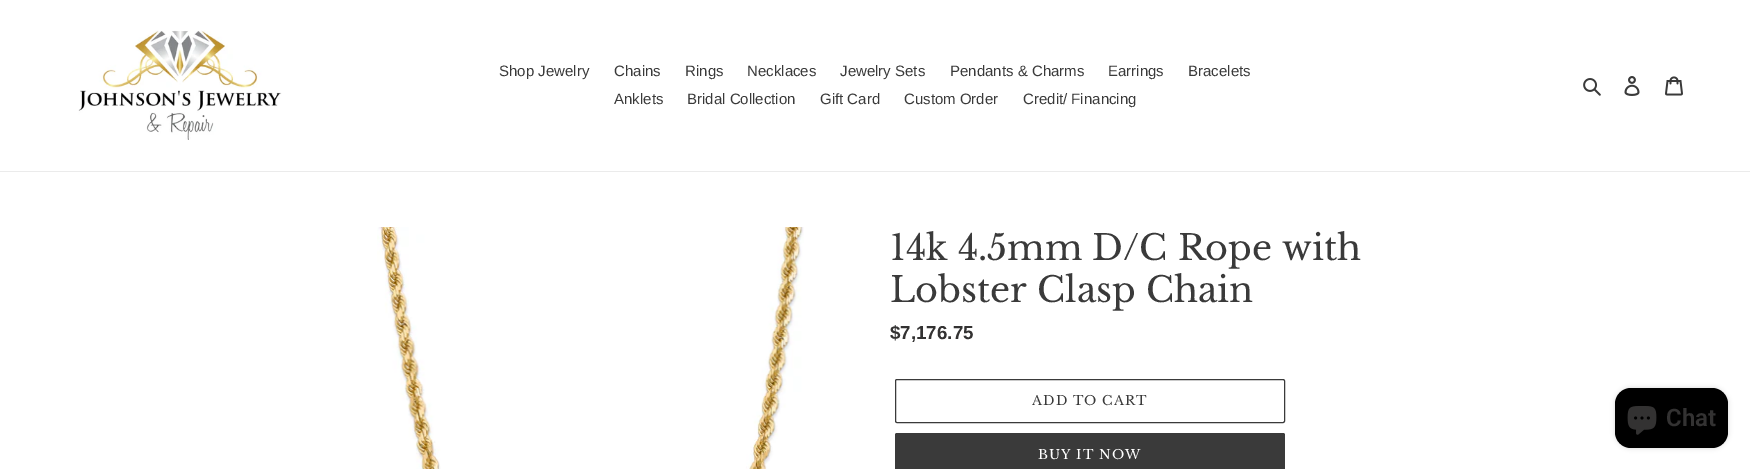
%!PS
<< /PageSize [1750 469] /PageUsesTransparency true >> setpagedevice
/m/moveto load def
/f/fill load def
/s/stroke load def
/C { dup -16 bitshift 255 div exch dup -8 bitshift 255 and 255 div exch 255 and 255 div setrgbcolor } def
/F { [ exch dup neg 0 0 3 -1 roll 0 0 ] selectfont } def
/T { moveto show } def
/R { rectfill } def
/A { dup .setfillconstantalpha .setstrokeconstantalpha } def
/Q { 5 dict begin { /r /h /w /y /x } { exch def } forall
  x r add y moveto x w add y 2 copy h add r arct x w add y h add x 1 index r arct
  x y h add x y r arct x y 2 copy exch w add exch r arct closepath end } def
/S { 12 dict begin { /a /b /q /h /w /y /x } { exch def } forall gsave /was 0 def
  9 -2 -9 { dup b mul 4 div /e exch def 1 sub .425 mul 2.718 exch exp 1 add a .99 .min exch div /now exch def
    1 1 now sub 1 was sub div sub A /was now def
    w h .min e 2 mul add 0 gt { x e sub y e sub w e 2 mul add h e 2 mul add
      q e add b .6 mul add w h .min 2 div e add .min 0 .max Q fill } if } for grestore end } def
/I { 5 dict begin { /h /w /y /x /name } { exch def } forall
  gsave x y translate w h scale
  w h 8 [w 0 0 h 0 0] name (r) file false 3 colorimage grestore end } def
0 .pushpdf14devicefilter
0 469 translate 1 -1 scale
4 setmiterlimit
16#FFFFFF C
0 0 1750 469 R
16#EBEBEB C
0 171 1750 1 R
(1.rgb) 78 30 204 110 I
/LiberationSans-Regular 15 F
16#3A3A3A C
(Shop Jewelry) 499 76 T
(Chains) 614 76 T
(Rings) 685 76 T
(Necklaces) 747 76 T
(Jewelry Sets) 840 76 T
(Pendants & Charms) 950 76 T
(Earrings) 1108 76 T
(Bracelets) 1188 76 T
(Anklets) 614 104 T
(Bridal Collection) 687 104 T
(Gift Card) 820 104 T
(Custom Order) 904 104 T
(Credit/ Financing) 1023 104 T
(2.rgb) 1583 78 18 18 I
(3.rgb) 1624 76 16 20 I
(4.rgb) 1665 76 18 20 I
(5.rgb) 377 227 427 242 I
/LibreBaskerville-Regular 35 F
(14k 4.5mm D/C Rope with) 890 260 T
(Lobster Clasp Chain) 890 302 T
/LiberationSans-Bold 18.75 F
16#333232 C
($7,176.75) 890 339 T
16#3A3A3A C
895.5 379.5 389 43 1.5 Q s
/LibreBaskerville-Regular 13 F
1032 405 m 1 0 (ADD TO CART) ashow
895 433 390 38 2 Q f
16#FFFFFF C
1038 459 m 1 0 (BUY IT NOW) ashow
16#000000 C
1615 388 113 60 16 2.5 .15 S
1615 388 113 60 16 Q f
(6.rgb) 1627 406 30 29 I
/Roboto-SemiBold 24 F
16#333232 C
(Chat) 1666 426 T
.poppdf14devicefilter showpage
